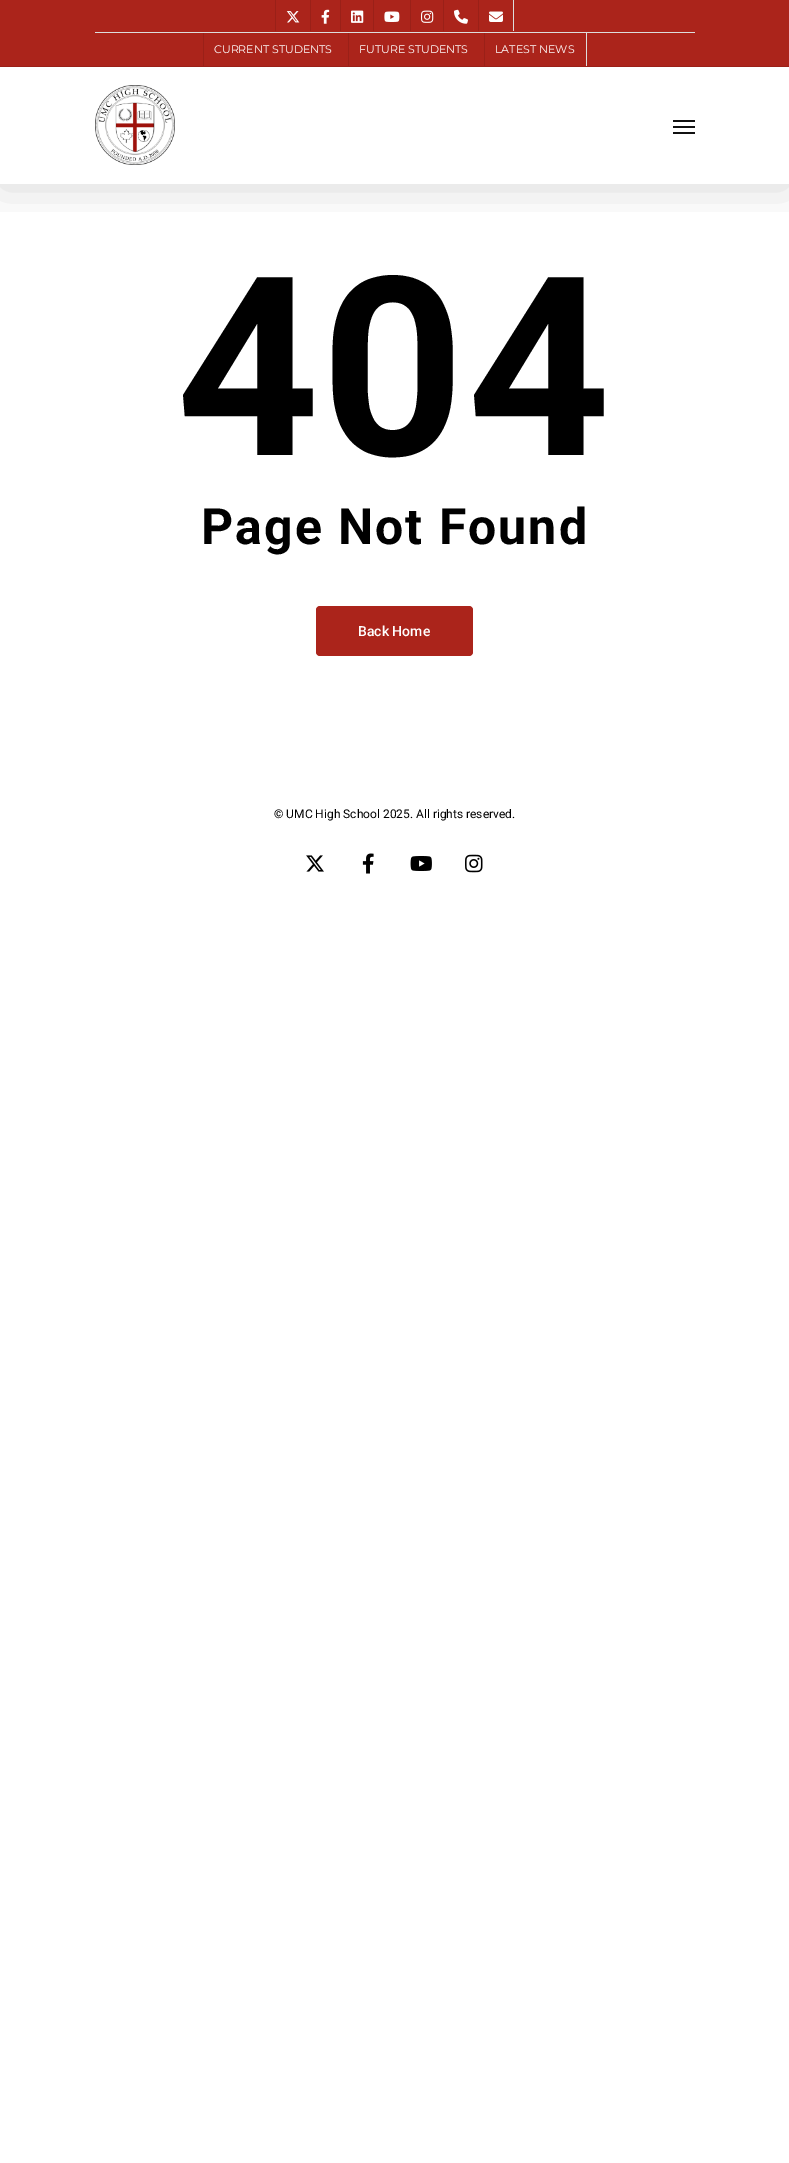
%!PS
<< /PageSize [789 2163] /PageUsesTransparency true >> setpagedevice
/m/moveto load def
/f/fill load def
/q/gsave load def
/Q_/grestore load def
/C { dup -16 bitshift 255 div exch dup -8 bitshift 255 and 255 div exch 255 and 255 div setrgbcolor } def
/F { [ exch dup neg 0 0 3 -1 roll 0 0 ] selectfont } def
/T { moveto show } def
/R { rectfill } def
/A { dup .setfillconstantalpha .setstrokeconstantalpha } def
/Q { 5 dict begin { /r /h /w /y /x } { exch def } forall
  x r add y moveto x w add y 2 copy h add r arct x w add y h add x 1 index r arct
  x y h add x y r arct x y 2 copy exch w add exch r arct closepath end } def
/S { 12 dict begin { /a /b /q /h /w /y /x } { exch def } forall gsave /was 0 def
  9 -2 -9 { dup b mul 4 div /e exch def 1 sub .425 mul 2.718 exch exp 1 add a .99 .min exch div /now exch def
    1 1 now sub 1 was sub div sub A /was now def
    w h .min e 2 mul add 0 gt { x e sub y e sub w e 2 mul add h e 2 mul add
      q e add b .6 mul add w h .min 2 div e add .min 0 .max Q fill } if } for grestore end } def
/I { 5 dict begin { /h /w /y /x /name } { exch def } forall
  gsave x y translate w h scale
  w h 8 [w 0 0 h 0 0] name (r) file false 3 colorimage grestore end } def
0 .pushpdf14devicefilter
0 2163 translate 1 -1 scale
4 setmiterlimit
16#FFFFFF C
0 0 789 2163 R
q
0 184 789 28 rectclip
16#000000 C
0 69 789 118 0 22.5 .15 S
Q_
(1.rgb) 95 85 80 80 I
16#111111 C
673 120 22 2 R
673 132 22 2 R
673 126 22 2 R
16#AB241B C
0 0 789 66 R
16#9A2018 C
0 66 789 1 R
275 0 1 31 R
(2.rgb) 286 11 14 12 I
310 0 1 31 R
(3.rgb) 321 9 9 15 I
340 0 1 31 R
(4.rgb) 351 10 13 13 I
373 0 1 31 R
(5.rgb) 384 11 16 11 I
410 0 1 31 R
(6.rgb) 421 10 13 13 I
443 0 1 31 R
(7.rgb) 454 9 14 15 I
16#DDDDDD C
513 0 1 31 R
16#9A2018 C
478 0 1 31 R
(8.rgb) 489 11 14 11 I
16#DDDDDD C
95 32 600 1 R
16#9A2018 C
203 33 1 33 R
/Montserrat-Regular 11 F
16#FFFFFF C
(CURRENT STUDENTS) 214 53 T
16#9A2018 C
348 33 1 33 R
16#FFFFFF C
(FUTURE STUDENTS) 359 53 T
16#DDDDDD C
586 33 1 33 R
16#9A2018 C
484 33 1 33 R
16#FFFFFF C
(LATEST NEWS) 495 53 T
/Roboto-Bold 250 F
16#000000 C
176 455 m 2 0 (404) ashow
/Roboto-Bold 50 F
201 544 m 2 0 (Page Not Found) ashow
16#AB241B C
316 606 157 50 4 Q f
/Roboto-Medium 14 F
16#FFFFFF C
(Back Home) 358 636 T
/Roboto-Regular 12 F
16#000000 C
(© UMC High School 2025. All rights reserved.) 274 818 T
(9.rgb) 306 855 18 17 I
(10.rgb) 362 853 12 21 I
(11.rgb) 410 856 22 15 I
(12.rgb) 465 854 18 19 I
.poppdf14devicefilter showpage
